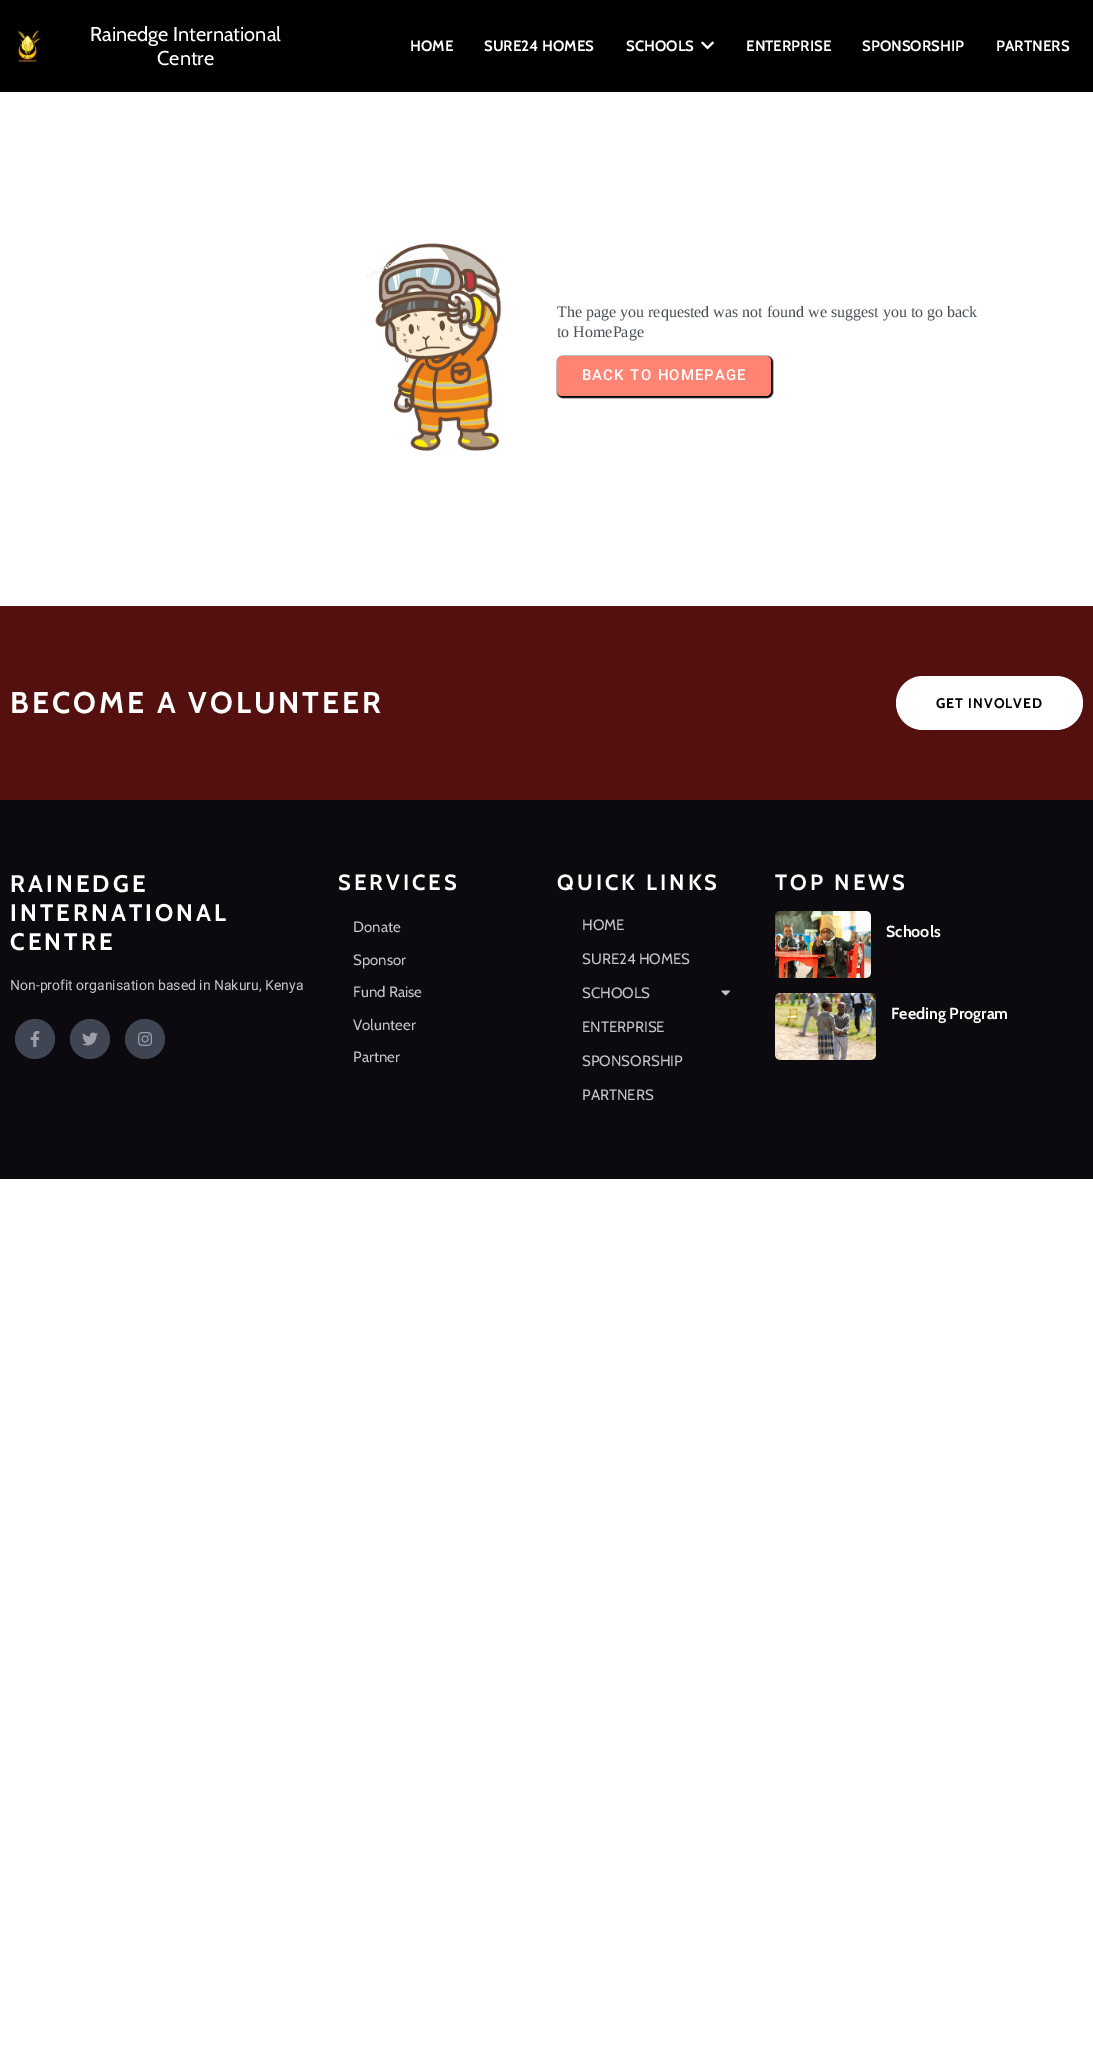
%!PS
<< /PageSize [1093 2055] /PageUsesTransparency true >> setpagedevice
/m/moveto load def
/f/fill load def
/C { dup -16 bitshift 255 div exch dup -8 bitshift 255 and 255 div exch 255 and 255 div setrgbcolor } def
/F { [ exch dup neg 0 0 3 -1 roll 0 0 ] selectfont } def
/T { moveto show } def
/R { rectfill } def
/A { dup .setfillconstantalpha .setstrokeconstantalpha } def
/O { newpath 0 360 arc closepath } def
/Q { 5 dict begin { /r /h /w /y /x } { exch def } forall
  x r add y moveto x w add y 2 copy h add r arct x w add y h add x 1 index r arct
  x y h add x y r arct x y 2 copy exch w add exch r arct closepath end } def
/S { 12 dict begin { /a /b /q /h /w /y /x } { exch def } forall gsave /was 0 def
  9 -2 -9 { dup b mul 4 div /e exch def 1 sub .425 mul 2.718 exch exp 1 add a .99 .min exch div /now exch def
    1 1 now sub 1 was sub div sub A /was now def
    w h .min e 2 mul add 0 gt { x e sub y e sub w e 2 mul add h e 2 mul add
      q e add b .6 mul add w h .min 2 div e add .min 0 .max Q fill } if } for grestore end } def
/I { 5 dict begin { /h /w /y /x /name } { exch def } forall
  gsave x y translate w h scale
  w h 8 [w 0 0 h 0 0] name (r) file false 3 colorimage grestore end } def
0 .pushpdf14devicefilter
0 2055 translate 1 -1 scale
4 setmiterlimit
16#FFFFFF C
0 0 1093 2055 R
16#000000 C
0 0 1093 92 R
(1.rgb) 17 30 25 33 I
/Cabin-Regular 20 F
16#FFFFFF C
(Rainedge International) 90 41 T
(Centre) 157 65 T
/Cabin-Bold 15 F
(HOME) 410 51 T
(SURE24 HOMES) 484 51 T
(SCHOOLS) 626 51 T
(2.rgb) 701 41 13 9 I
(ENTERPRISE) 746 51 T
(SPONSORSHIP) 862 51 T
(PARTNERS) 996 51 T
(3.rgb) 366 242 136 209 I
/LiberationSerif-Regular 16 F
16#495057 C
(The page you requested was not found we suggest you to go back) 557 317 T
(to HomePage) 557 337 T
16#000000 C
557 356 216 42 6 .5 1 S
16#FF8474 C
557 356 214 40 5 Q f
/Roboto-Medium 15 F
16#FFFFFF C
582 380 m 1 0 32 1 0 (BACK TO HOMEPAGE) awidthshow
16#540F0F C
0 606 1093 194 R
/Cabin-Bold 30 F
16#FFFFFF C
10 713 m 3 0 (BECOME A VOLUNTEER) ashow
896 676 187 54 27 Q f
/Cabin-Bold 14 F
16#000000 C
936 708 m 1 0 (GET INVOLVED) ashow
16#0C090F C
0 800 1093 379 R
/Cabin-Bold 24 F
16#FFFFFF C
10 892 m 3 0 (RAINEDGE) ashow
10 921 m 3 0 (INTERNATIONAL) ashow
10 950 m 3 0 (CENTRE) ashow
/Roboto-Regular 14 F
16#C4C5C7 C
(Non-profit organisation based in Nakuru, Kenya) 10 990 T
16#404554 C
35 1039 20 O f
(4.rgb) 30 1031 10 16 I
90 1039 20 O f
(5.rgb) 82 1032 16 14 I
145 1039 20 O f
(6.rgb) 138 1032 14 14 I
/Cabin-Bold 22 F
16#FFFFFF C
338 890 m 3 0 (SERVICES) ashow
/Cabin-Regular 15 F
16#C4C5C7 C
(Donate) 353 932 T
(Sponsor) 353 965 T
(Fund Raise) 353 997 T
(Volunteer) 353 1030 T
(Partner) 353 1062 T
/Cabin-Bold 22 F
16#FFFFFF C
557 890 m 3 0 (QUICK LINKS) ashow
/Cabin-Regular 15 F
16#C4C5C7 C
(HOME) 582 930 T
(SURE24 HOMES) 582 964 T
(SCHOOLS) 582 998 T
(7.rgb) 721 990 9 6 I
(ENTERPRISE) 582 1032 T
(SPONSORSHIP) 582 1066 T
(PARTNERS) 582 1100 T
/Cabin-Bold 22 F
16#FFFFFF C
775 890 m 3 0 (TOP NEWS) ashow
(8.rgb) 775 911 96 67 I
/Cabin-Bold 16 F
(Schools) 886 937 T
(9.rgb) 775 993 101 67 I
(Feeding Program) 891 1019 T
.poppdf14devicefilter showpage
